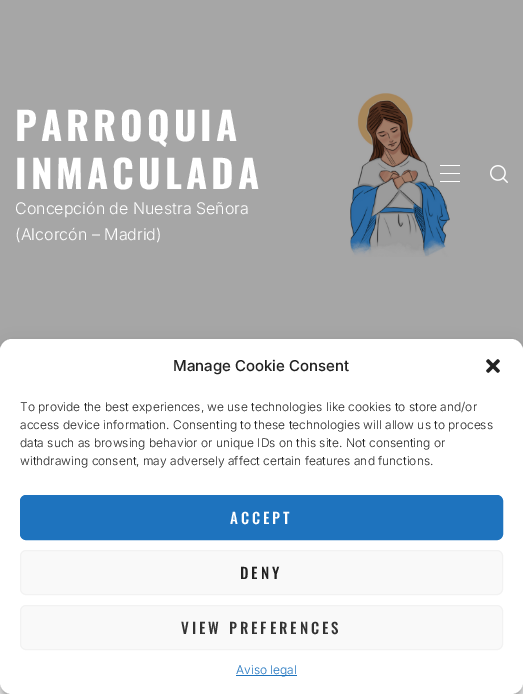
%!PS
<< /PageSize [523 694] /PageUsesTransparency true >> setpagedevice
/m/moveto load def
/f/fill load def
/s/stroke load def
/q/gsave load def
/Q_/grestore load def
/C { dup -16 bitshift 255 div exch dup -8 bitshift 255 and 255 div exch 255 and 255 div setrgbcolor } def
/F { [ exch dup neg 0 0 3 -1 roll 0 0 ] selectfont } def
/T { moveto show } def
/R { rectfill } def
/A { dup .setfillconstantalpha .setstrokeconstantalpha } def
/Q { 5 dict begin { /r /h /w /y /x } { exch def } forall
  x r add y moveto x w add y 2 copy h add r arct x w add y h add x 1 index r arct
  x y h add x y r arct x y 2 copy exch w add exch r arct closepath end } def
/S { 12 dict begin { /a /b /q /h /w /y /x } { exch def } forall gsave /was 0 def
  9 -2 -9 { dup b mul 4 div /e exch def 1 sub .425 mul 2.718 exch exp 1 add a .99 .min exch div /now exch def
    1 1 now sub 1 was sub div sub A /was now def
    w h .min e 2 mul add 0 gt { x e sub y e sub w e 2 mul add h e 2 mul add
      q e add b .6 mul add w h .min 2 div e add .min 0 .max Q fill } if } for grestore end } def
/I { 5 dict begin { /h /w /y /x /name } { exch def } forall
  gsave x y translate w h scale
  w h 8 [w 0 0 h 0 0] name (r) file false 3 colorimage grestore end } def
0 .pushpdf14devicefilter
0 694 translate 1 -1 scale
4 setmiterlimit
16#FFFFFF C
0 0 523 694 R
16#A6A6A6 C
0 0 523 347 R
(1.rgb) 350 93 100 164 I
16#E0E0E0 C
0 347 523 1 R
/Oswald-Bold 38.5 F
16#FFFFFF C
15 141 m 4 0 (PARROQUIA) ashow
15 189 m 4 0 (INMACULADA) ashow
/Inter-Light 16 F
(Concepción de Nuestra Señora) 15 214 T
(\(Alcorcón – Madrid\)) 15 240 T
440 173 20 1 R
440 165 20 1 R
440 181 20 1 R
(2.rgb) 490 165 18 18 I
16#000000 C
0 345 523 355 12 3 .23 S
0 349 523 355 12 10 .19 S
16#FFFFFF C
0 339 523 355 12 Q f
/Inter-Medium 15 F
16#222222 C
(Manage Cookie Consent) 173 371 T
(3.rgb) 486 359 14 14 I
/Inter-Light 12 F
(To provide the best experiences, we use technologies like cookies to store and/or) 20 411 T
(access device information. Consenting to these technologies will allow us to process) 20 429 T
(data such as browsing behavior or unique IDs on this site. Not consenting or) 20 447 T
(withdrawing consent, may adversely affect certain features and functions.) 20 465 T
16#1E73BE C
20.5 495.5 482 44 5.5 Q q f Q_
s
/Oswald-Medium 15 F
16#FFFFFF C
230 524 m 3 0 (ACCEPT) ashow
16#F9F9F9 C
20.5 550.5 482 44 5.5 Q q f Q_
16#F2F2F2 C
s
16#222222 C
240 579 m 3 0 (DENY) ashow
16#F9F9F9 C
20.5 605.5 482 44 5.5 Q q f Q_
16#F2F2F2 C
s
16#333333 C
181 634 m 3 0 (VIEW PREFERENCES) ashow
16#1E73BE C
236 675 61 1 R
/Inter-Light 12 F
(Aviso legal) 236 674 T
.poppdf14devicefilter showpage
